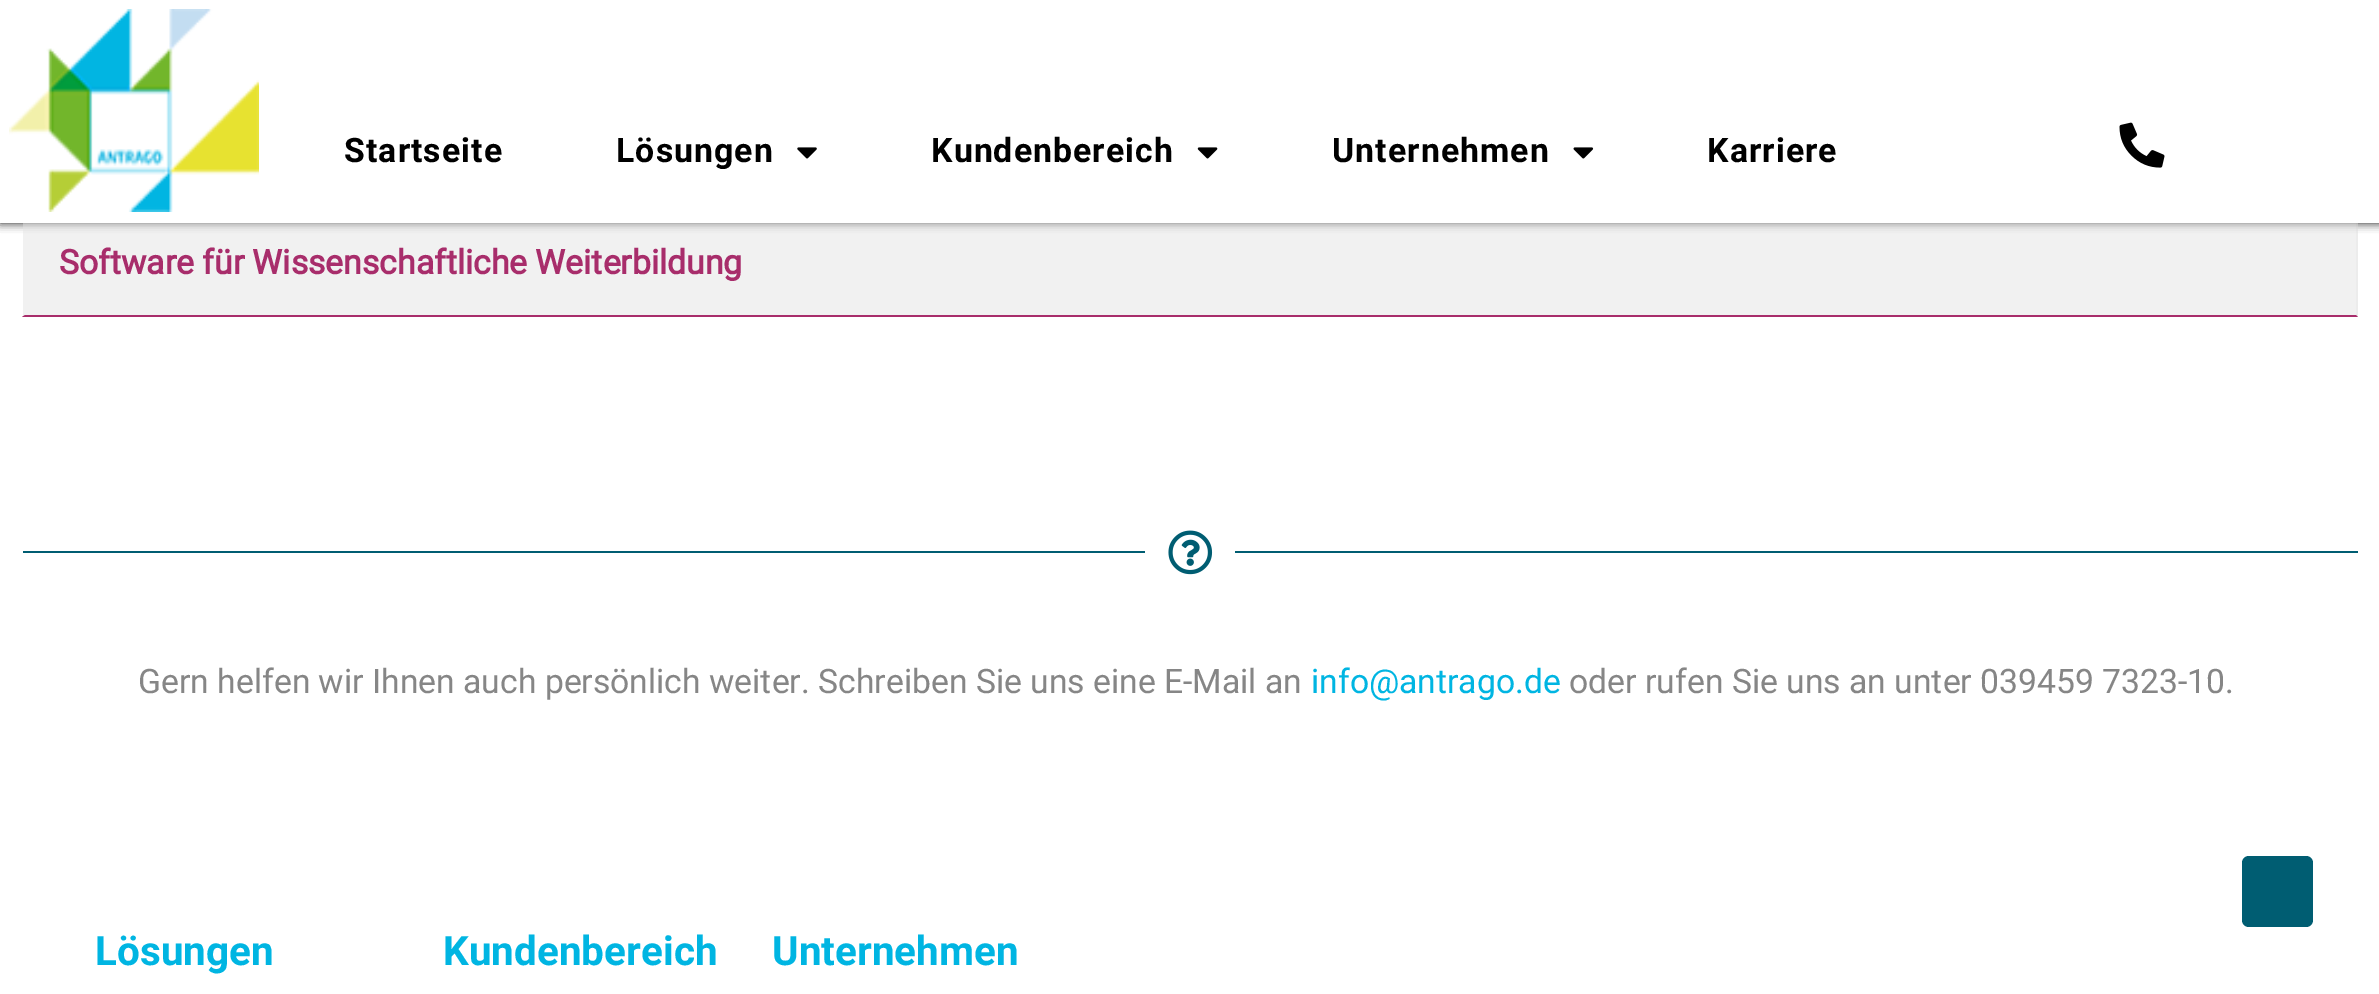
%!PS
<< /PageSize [2379 994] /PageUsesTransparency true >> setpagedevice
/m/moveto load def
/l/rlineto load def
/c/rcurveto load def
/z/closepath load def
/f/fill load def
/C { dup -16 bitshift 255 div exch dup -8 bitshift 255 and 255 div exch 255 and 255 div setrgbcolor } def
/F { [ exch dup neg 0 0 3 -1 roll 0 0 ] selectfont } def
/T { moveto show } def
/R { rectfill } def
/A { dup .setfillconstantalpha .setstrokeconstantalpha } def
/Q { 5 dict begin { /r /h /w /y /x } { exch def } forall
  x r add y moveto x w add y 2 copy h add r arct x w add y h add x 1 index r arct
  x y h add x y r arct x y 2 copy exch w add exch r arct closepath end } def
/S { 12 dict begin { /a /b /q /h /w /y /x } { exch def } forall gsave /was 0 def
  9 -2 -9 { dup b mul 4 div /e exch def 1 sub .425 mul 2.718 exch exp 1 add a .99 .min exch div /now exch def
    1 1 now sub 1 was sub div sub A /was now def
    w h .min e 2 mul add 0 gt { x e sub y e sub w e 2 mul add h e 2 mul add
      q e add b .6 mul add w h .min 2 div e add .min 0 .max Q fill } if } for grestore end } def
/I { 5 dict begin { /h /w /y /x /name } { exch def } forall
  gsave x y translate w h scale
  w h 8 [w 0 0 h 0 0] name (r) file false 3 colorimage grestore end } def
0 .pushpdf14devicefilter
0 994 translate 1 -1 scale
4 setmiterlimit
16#FFFFFF C
0 0 2379 994 R
16#000000 C
0 0 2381 223 0 4.5 .5 S
16#F1F1F1 C
23 223 2335 94 R
16#ECECEC C
2358 212 m 0 105 l -2 -2 l 0 -101 l z f
16#000000 C
0 0 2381 223 0 4.5 .5 S
16#FFFFFF C
0 0 2379 223 R
(1.rgb) 9 9 250 203 I
/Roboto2-Bold 33.75 F
16#000000 C
344 162 m 1.1 0 (Startseite) ashow
616 162 m 1.1 0 (Lösungen) ashow
(2.rgb) 797 147 20 12 I
931 162 m 1.1 0 (Kundenbereich) ashow
(3.rgb) 1197 147 21 12 I
1332 162 m 1.1 0 (Unternehmen) ashow
(4.rgb) 1573 147 21 12 I
1707 162 m 1.1 0 (Karriere) ashow
(5.rgb) 2119 122 46 46 I
16#A82D6B C
2358 317 m -2336 0 l 3 -2 l 2331 0 l z f
/Roboto-Bold 33.75 F
(Software für Wissenschaftliche Weiterbildung) 59 274 T
16#005D72 C
23 551 1122 2 R
(6.rgb) 1168 530 45 45 I
1235 551 1123 2 R
/Roboto-Regular 33.75 F
16#868686 C
(Gern helfen wir Ihnen auch persönlich weiter. Schreiben Sie uns eine E-Mail an) 138 693 T
16#00B5E2 C
(info@antrago.de) 1311 693 T
16#868686 C
(oder rufen Sie uns an unter 039459 7323-10.) 1569 693 T
/Roboto2-Bold 40.5 F
16#00B5E2 C
(Lösungen) 95 965 T
(Kundenbereich) 443 965 T
(Unternehmen) 772 965 T
16#005D72 C
2306 927 m -57 0 l -4 0 -7 -3 -7 -7 c 0 -57 l 0 -4 3 -7 7 -7 c 57 0 l 4 0 7 3 7 7 c 0 57 l 0 4 -3 7 -7 7 c z f
.poppdf14devicefilter showpage
